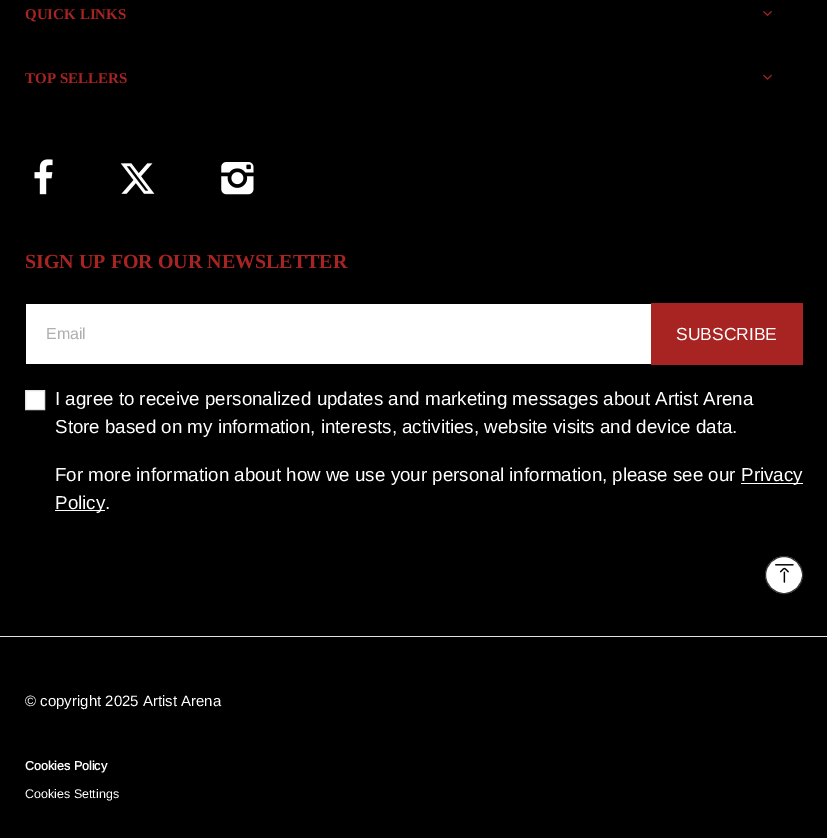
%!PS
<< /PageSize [827 838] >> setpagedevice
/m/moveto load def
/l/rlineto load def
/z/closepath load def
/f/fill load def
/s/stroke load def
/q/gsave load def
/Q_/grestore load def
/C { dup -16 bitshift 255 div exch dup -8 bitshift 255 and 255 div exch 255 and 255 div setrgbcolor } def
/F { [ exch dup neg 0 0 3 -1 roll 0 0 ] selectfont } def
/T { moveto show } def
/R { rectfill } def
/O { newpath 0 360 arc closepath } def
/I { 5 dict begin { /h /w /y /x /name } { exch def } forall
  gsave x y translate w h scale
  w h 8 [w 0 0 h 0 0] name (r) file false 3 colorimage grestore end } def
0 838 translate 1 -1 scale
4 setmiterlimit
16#000000 C
0 0 827 838 R
/LiberationSerif-Bold 15 F
16#A82422 C
(QUICK LINKS) 25 19 T
(1.rgb) 763 11 9 5 I
(TOP SELLERS) 25 83 T
(2.rgb) 763 74 9 6 I
(3.rgb) 34 159 19 36 I
(4.rgb) 120 163 35 31 I
(5.rgb) 221 162 33 33 I
/LiberationSerif-Bold 20 F
(SIGN UP FOR OUR NEWSLETTER) 25 268 T
16#FFFFFF C
26 304 625 60 R
/Arimo-Regular 16 F
16#AFAFAF C
(Email) 46 339 T
16#A82422 C
651 303 152 62 R
/Arimo-Regular 17.5 F
16#FFFFFF C
(SUBSCRIBE) 676 340 T
25.5 390.5 m 19 0 l 0 19 l -19 0 l z q f Q_
16#E0E0E0 C
s
/Arimo-Regular 18.75 F
16#FFFFFF C
(I agree to receive personalized updates and marketing messages about Artist Arena) 55 405 T
(Store based on my information, interests, activities, website visits and device data.) 55 433 T
(For more information about how we use your personal information, please see our) 55 481 T
741 483 62 1 R
(Privacy) 741 481 T
55 510 50 1 R
(Policy.) 55 509 T
784 575 18.5 O q f Q_
16#333333 C
s
(6.rgb) 775 564 19 19 I
16#E0E0E0 C
0 636 827 1 R
/Arimo-Regular 15 F
16#FFFFFF C
(© copyright 2025 Artist Arena) 25 706 T
/Arimo-Bold 12.5 F
(Cookies Policy) 25 770 T
/Arimo-Regular 12.5 F
(Cookies Settings) 25 798 T
showpage
